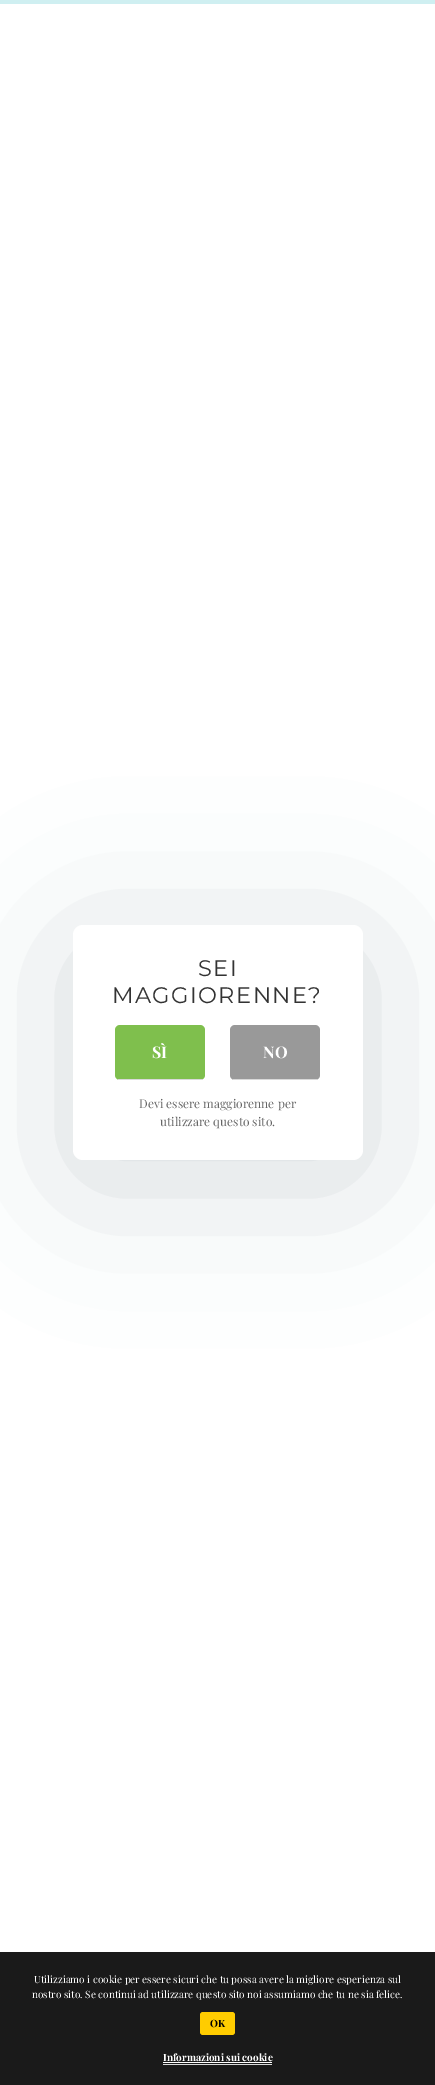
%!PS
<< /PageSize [435 2085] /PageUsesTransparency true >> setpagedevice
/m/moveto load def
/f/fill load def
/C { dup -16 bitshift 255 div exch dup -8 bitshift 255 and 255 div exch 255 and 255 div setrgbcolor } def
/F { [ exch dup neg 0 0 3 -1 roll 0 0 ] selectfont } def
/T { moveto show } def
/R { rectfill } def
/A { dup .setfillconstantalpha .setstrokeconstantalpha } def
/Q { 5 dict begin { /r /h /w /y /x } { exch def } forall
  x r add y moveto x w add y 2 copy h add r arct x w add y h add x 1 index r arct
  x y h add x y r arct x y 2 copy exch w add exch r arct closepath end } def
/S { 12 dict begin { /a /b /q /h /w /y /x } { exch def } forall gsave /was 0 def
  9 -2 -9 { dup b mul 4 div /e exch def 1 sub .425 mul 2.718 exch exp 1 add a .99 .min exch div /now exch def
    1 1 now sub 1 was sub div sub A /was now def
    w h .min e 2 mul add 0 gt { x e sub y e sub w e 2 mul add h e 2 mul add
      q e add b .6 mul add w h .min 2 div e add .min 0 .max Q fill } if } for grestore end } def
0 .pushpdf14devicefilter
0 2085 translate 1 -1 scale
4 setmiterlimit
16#FFFFFF C
0 0 435 2085 R
16#CFEFF1 C
0 0 435 4 R
16#33495A C
73 945 290 235 10 75 .2 S
16#FFFFFF C
73 925 290 235 10 Q f
/Montserrat-Thin 22.5 F
16#333333 C
198 976 m 1.4 0 (SEI) ashow
112 1003 m 1.4 0 (MAGGIORENNE?) ashow
16#7FBF4D C
115 1025 90 55 5 Q f
16#D9D9D9 C
118 1079 85 1 R
/PlayfairDisplay-Bold 16 F
16#FFFFFF C
(SÌ) 152 1058 T
16#999999 C
230 1025 90 55 5 Q f
16#D9D9D9 C
233 1079 85 1 R
16#FFFFFF C
(NO) 263 1058 T
/PlayfairDisplay-Regular 12 F
16#666666 C
(Devi essere maggiorenne per) 139 1108 T
(utilizzare questo sito.) 160 1126 T
16#1A1A1A C
0 1952 435 133 R
/PlayfairDisplay-Regular 10 F
16#FFFFFF C
(Utilizziamo i cookie per essere sicuri che tu possa avere la migliore esperienza sul) 34 1983 T
(nostro sito. Se continui ad utilizzare questo sito noi assumiamo che tu ne sia felice.) 32 1998 T
16#FFCC00 C
200 2012 35 23 3 Q f
/PlayfairDisplay-Bold 10 F
16#000000 C
(OK) 210 2027 T
16#FFFFFF C
(Informazioni sui cookie) 163 2061 T
16#D9D9D9 C
163 2064 109 1 R
16#FFFFFF C
163 2062 109 1 R
.poppdf14devicefilter showpage
